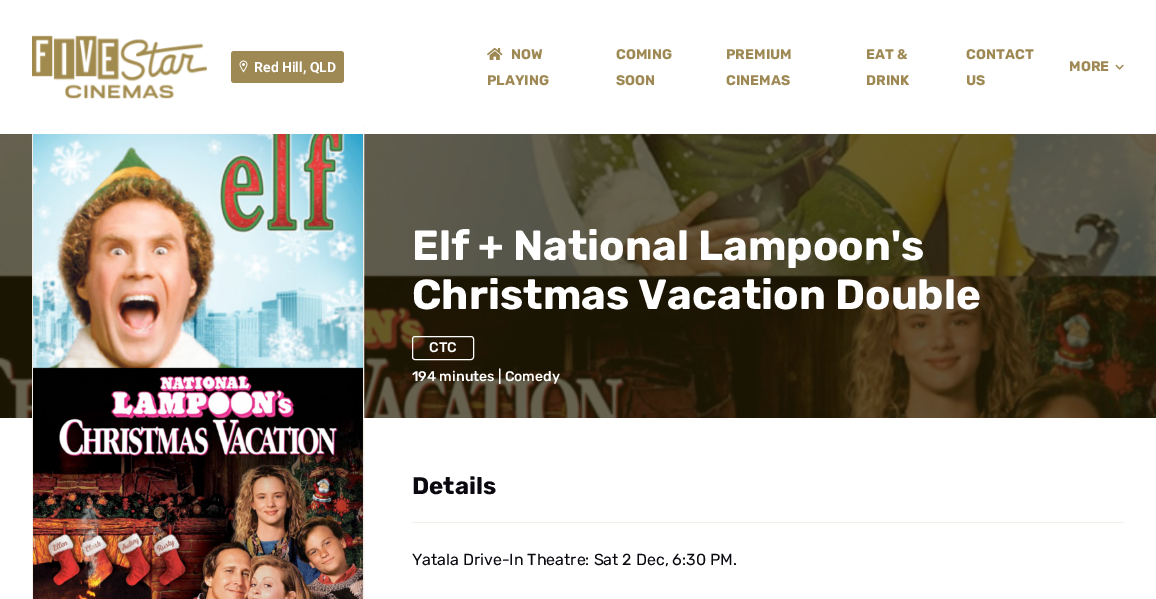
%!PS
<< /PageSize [1156 599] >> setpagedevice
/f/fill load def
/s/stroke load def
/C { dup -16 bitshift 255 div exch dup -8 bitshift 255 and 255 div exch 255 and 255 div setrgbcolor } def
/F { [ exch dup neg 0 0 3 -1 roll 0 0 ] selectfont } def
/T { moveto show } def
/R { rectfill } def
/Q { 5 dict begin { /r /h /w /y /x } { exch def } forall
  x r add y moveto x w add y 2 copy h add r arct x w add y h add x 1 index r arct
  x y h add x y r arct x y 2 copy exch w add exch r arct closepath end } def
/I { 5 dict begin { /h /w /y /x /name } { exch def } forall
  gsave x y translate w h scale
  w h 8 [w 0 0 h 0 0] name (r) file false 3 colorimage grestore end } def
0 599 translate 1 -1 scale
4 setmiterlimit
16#FFFFFF C
0 0 1156 599 R
(5.rgb) 0 134 1156 284 I
16#F3EFE8 C
32.5 124.5 331 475 rectstroke
16#FFFFFF C
32 124 332 10 R
(1.rgb) 32 35 175 64 I
16#9E8955 C
231 51 113 32 3 Q f
(2.rgb) 239 60 9 13 I
/Roboto-Bold 14 F
16#FFFFFF C
(Red Hill, QLD) 254 72 T
(3.rgb) 487 48 16 12 I
/Rubik-Bold 14 F
16#9E8955 C
(NOW) 511 59 T
(PLAYING) 487 85 T
(COMING) 616 59 T
(SOON) 616 85 T
(PREMIUM) 726 59 T
(CINEMAS) 726 85 T
(EAT &) 866 59 T
(DRINK) 866 85 T
(CONTACT) 966 59 T
(US) 966 85 T
(MORE) 1069 71 T
(4.rgb) 1115 64 9 6 I
(6.rgb) 33 134 330 465 I
/Rubik-Bold 42 F
16#FFFFFF C
(Elf + National Lampoon's) 412 260 T
(Christmas Vacation Double) 412 309 T
412.5 336.5 61 23 2.5 Q s
/Rubik-Medium 14 F
(CTC) 429 352 T
(194 minutes | Comedy) 412 381 T
/Rubik-Bold 24 F
16#0B0810 C
(Details) 412 494 T
16#F3EFE8 C
412 522 712 1 R
/Rubik-Regular 16 F
16#0B0810 C
(Yatala Drive-In Theatre: Sat 2 Dec, 6:30 PM.) 412 565 T
showpage
